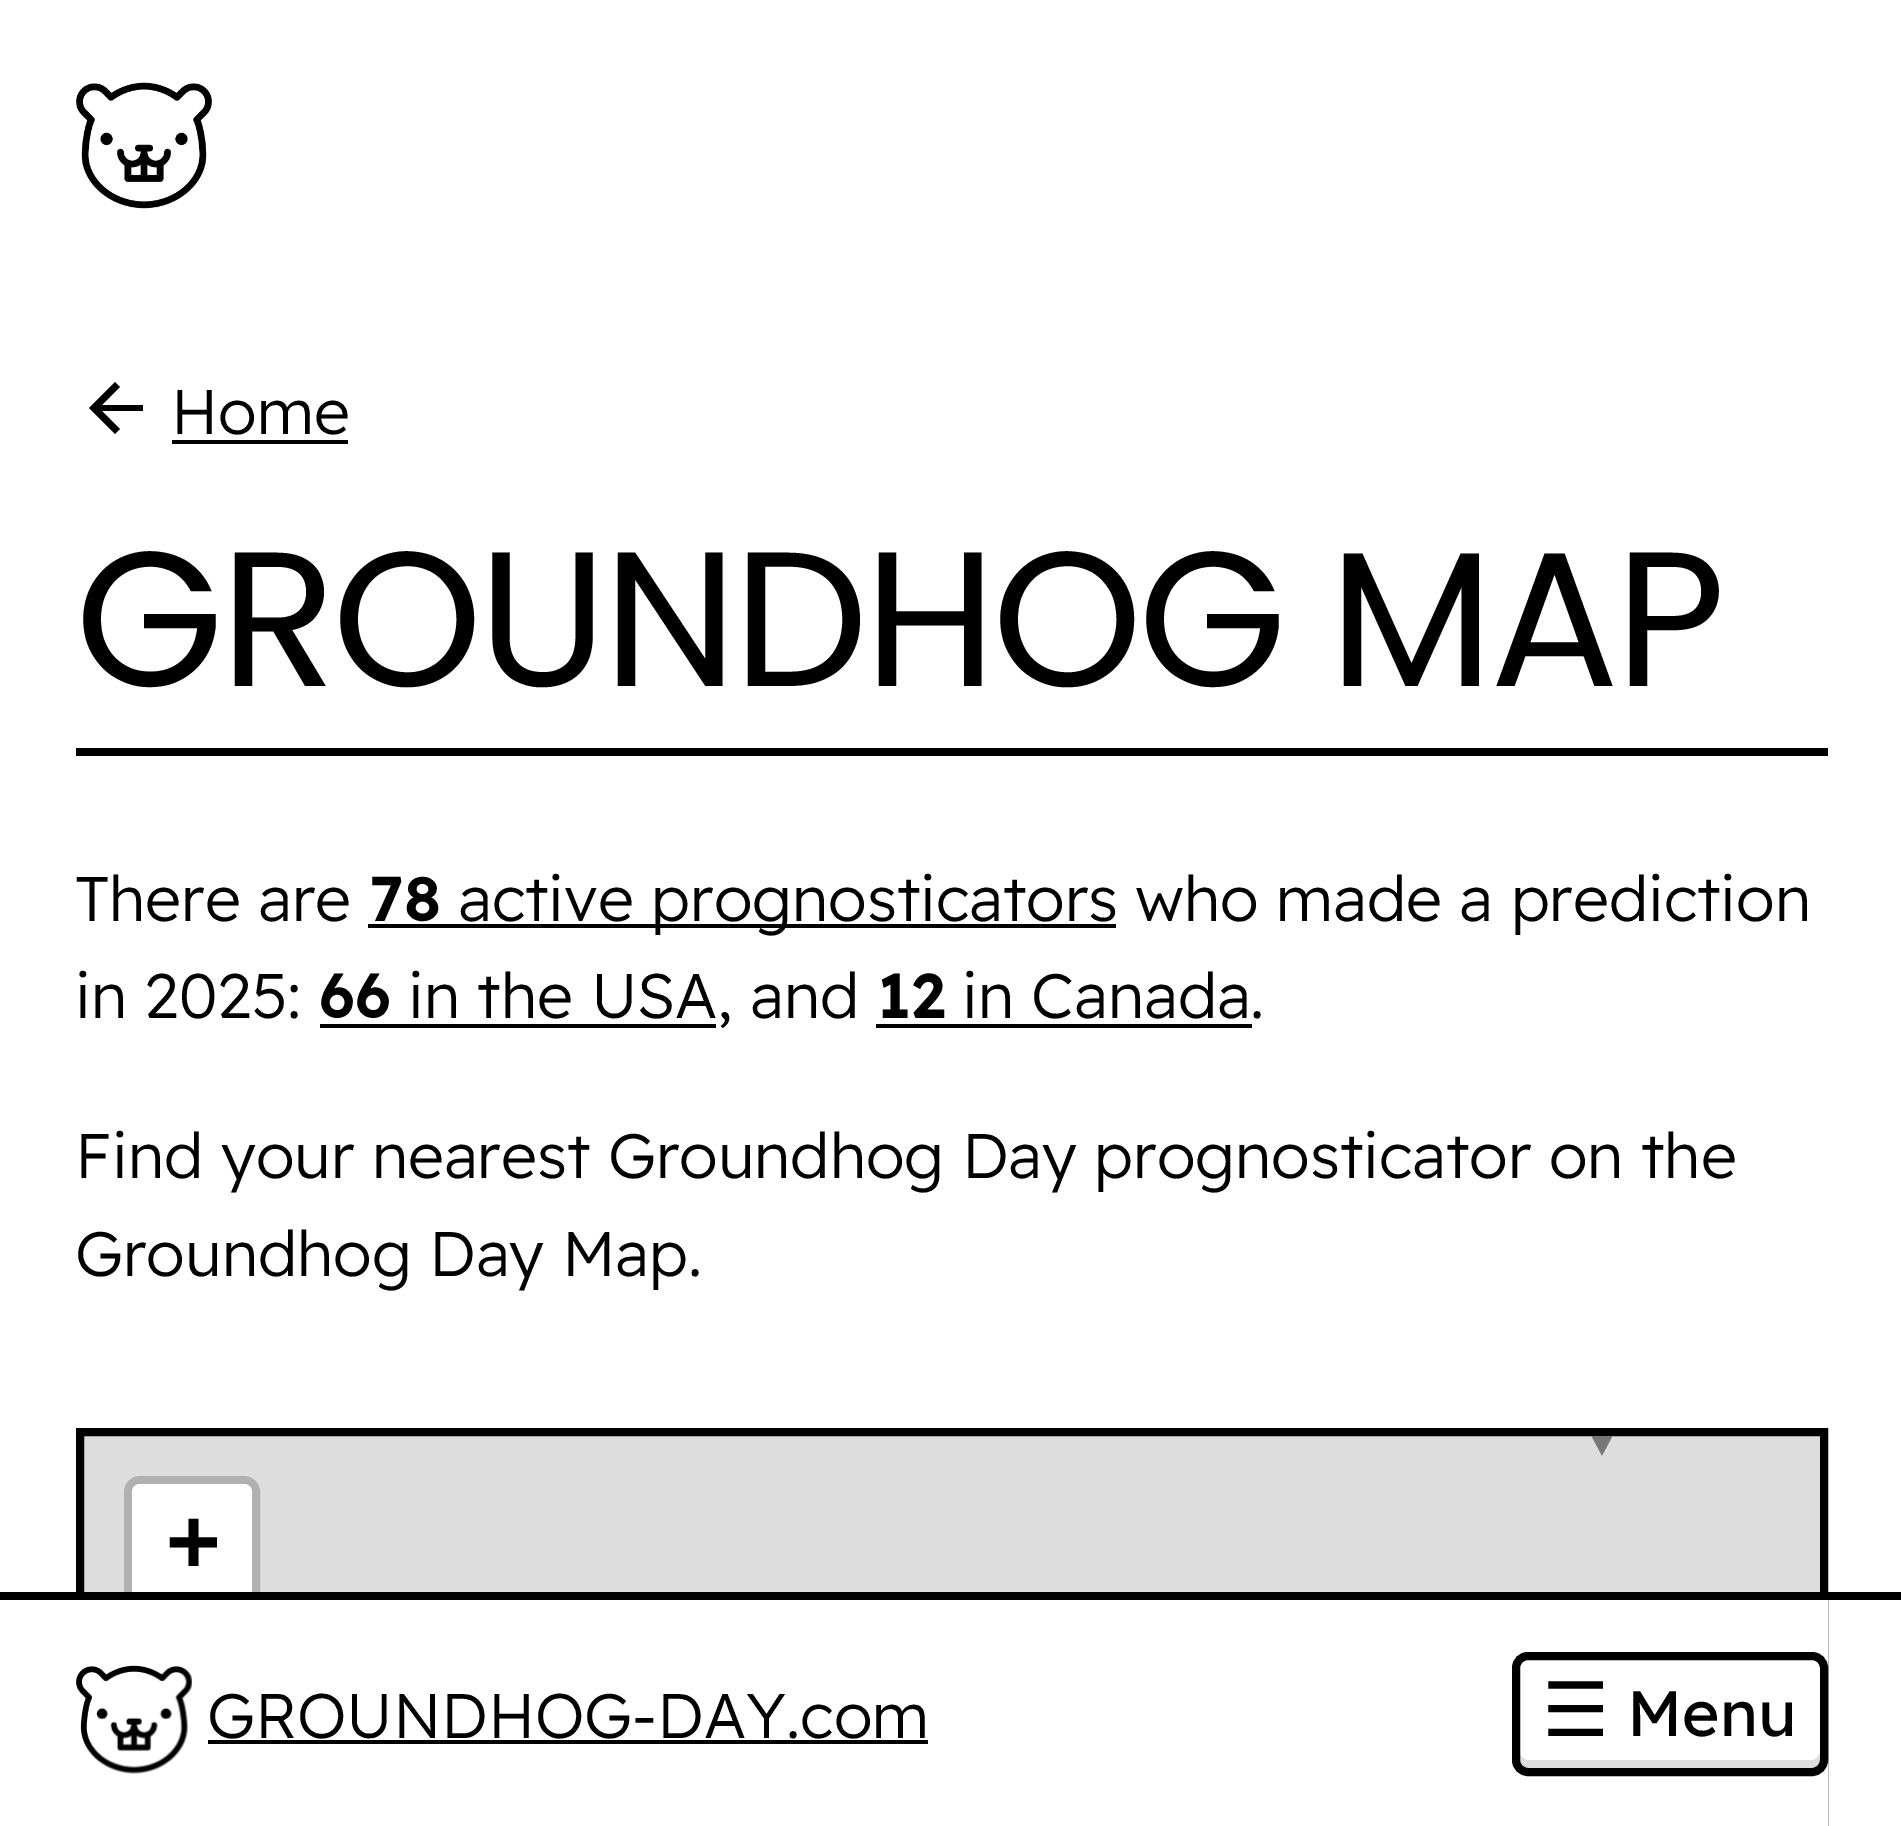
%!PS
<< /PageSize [1901 1826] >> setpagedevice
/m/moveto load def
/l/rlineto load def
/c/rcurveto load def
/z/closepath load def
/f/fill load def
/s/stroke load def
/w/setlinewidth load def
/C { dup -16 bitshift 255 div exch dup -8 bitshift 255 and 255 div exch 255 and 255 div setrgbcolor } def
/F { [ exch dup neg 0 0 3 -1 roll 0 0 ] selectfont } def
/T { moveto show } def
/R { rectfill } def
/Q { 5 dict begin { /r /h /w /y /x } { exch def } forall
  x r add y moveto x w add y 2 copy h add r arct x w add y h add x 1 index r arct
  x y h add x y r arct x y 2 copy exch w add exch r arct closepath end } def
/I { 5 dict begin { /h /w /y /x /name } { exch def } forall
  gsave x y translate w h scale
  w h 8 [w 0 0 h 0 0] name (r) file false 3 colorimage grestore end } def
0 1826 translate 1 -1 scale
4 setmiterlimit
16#FFFFFF C
0 0 1901 1826 R
(1.rgb) 76 82 136 127 I
16#000000 C
102 405 m 41 0 l 0 6 l -41 0 l 18 18 l -5 5 l -26 -26 l 26 -26 l 5 5 l z f
/ReadexPro-Light 62.75 F
(Home) 171 434 T
172 440 176 4 R
76 748 1752 8 R
/Poppins-Regular 191.5 F
75 686 m -4.4 0 (GROUNDHOG MAP) ashow
/ReadexPro-Light 62.75 F
(There are) 75 921 T
/ReadexPro-SemiBold 62.75 F
(78) 369 921 T
368 924 748 4 R
/ReadexPro-Light 62.75 F
(active prognosticators) 458 921 T
(who made a prediction) 1135 921 T
(in 2025:) 75 1018 T
/ReadexPro-SemiBold 62.75 F
(66) 319 1018 T
320 1024 396 4 R
/ReadexPro-Light 62.75 F
(in the USA, and) 408 1018 T
/ReadexPro-SemiBold 62.75 F
(12) 877 1018 T
876 1024 376 4 R
/ReadexPro-Light 62.75 F
(in Canada.) 962 1018 T
(Find your nearest Groundhog Day prognosticator on the) 75 1178 T
(Groundhog Day Map.) 75 1276 T
16#DDDDDD C
84 1436 1736 156 R
16#000000 C
8 w
80 1432 1744 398 rectstroke
(2.rgb) 1591 1436 22 20 I
16#B1B1B1 C
128 1480 128 248 12 Q s
16#FFFFFF C
140 1484 m 104 0 l 4.5 0 8 3.5 8 8 c 0 112 l -120 0 l 0 -112 l 0 -4.5 3.5 -8 8 -8 c z f
/DejaVuSansMono-Bold 88 F
16#000000 C
(+) 167 1570 T
16#FFFFFF C
76 1600 1752 226 R
(3.rgb) 76 1665 116 109 I
/ReadexPro-Light 62.75 F
16#000000 C
(GROUNDHOG-DAY.com) 207 1738 T
208 1740 720 4 R
0 1592 1901 8 R
16#DDDDDD C
1520 1752 m 0 8 l 0 4 4 8 8 8 c 284 0 l 4 0 8 -4 8 -8 c 0 -8 l 0 4 -4 8 -8 8 c -284 0 l -4 0 -8 -4 -8 -8 c z f
16#000000 C
1516 1656 308 116 12 Q s
/DejaVuSans-Regular 75 F
(☰) 1542 1736 T
/ReadexPro-Regular 64 F
(Menu) 1627 1736 T
showpage
